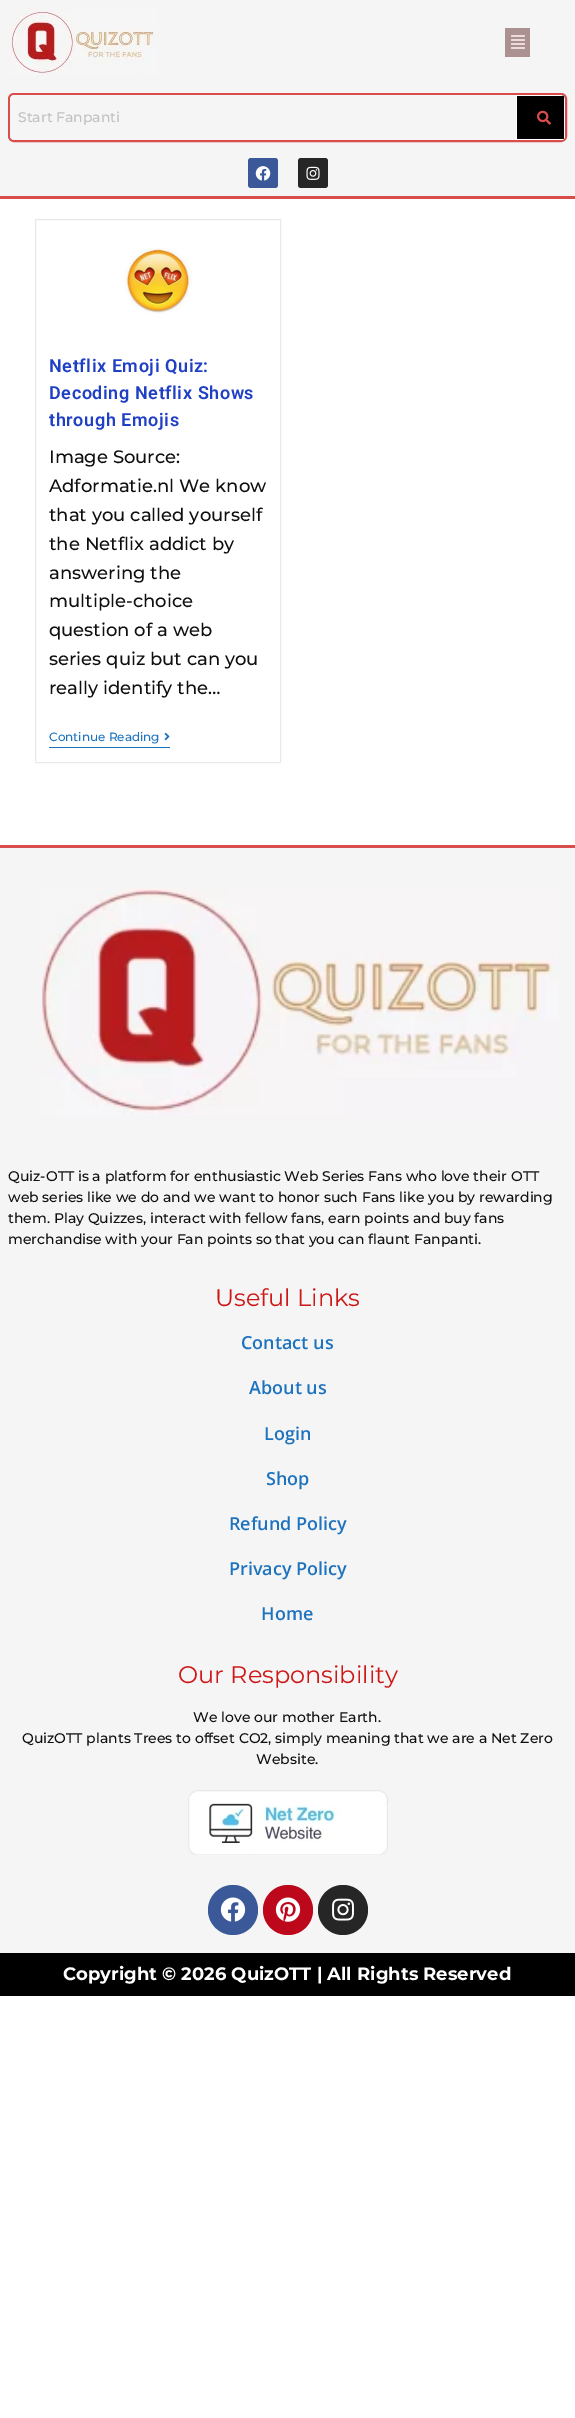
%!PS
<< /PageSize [575 2418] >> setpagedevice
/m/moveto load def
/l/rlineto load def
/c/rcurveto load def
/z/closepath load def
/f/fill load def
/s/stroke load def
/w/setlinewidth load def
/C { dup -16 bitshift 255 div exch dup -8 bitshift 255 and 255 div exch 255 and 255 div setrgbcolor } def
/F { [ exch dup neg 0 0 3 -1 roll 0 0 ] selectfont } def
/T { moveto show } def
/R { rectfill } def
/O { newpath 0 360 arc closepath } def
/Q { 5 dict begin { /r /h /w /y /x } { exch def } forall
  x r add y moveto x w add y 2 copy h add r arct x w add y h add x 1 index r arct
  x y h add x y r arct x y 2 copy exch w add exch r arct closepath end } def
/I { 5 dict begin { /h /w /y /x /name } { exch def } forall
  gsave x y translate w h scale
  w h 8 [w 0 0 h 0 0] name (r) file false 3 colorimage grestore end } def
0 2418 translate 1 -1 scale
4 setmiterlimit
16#FFFFFF C
0 0 575 2418 R
16#F5F5F5 C
0 0 575 196 R
(1.rgb) 8 8 150 68 I
16#AC9191 C
505 28 25 29 R
(2.rgb) 511 35 14 14 I
16#DA4D4D C
0 196 575 3 R
2 w
9 94 557 47 5 Q s
16#F5F5F5 C
14 95 m 502 0 l 0 45 l -502 0 l -2 0 -4 -2 -4 -4 c 0 -37 l 0 -2 2 -4 4 -4 c z f
/Montserrat-Medium 14 F
16#C1C1C1 C
(Start Fanpanti) 18 122 T
16#000000 C
516 95 m 45 0 l 2 0 4 2 4 4 c 0 37 l 0 2 -2 4 -4 4 c -45 0 l z f
16#FFFFFF C
516 95 m 0 45 l 45 0 l 1 0 2 0 3 -1 c -47 0 l 0 -43 l 47 0 l -3 -1 l z 565 99 m -1 -3 l 0 43 l 1 -1 1 -2 1 -3 c z eofill
(3.rgb) 537 110 14 15 I
16#3B5998 C
248 158 30 30 3 Q f
(4.rgb) 255 166 16 15 I
16#262626 C
298 158 30 30 3 Q f
(5.rgb) 306 166 14 14 I
16#E9E9E9 C
1 w
35.5 219.5 245 543 rectstroke
(6.rgb) 124 248 68 66 I
/Roboto-SemiBold 18 F
16#1F40C4 C
49 372 m .6 0 (Netflix Emoji Quiz:) ashow
49 399 m .6 0 (Decoding Netflix Shows) ashow
49 426 m .6 0 (through Emojis) ashow
/Montserrat-Medium 18 F
16#0F0F0F C
(Image Source:) 49 463 T
(Adformatie.nl We know) 49 492 T
(that you called yourself) 49 521 T
(the Netflix addict by) 49 550 T
(answering the) 49 579 T
(multiple-choice) 49 607 T
(question of a web) 49 636 T
(series quiz but can you) 49 665 T
(really identify the…) 49 694 T
16#1E73BE C
49 747 121 1 R
/Montserrat-Medium 12 F
(Continue Reading) 49 741 T
(7.rgb) 164 732 6 9 I
16#F5F5F5 C
0 848 575 1105 R
16#DA4D4D C
0 845 575 3 R
(8.rgb) 40 888 519 228 I
/Montserrat-Medium 14 F
16#0F0F0F C
(Quiz-OTT is a platform for enthusiastic Web Series Fans who love their OTT) 8 1181 T
(web series like we do and we want to honor such Fans like you by rewarding) 8 1202 T
(them. Play Quizzes, interact with fellow fans, earn points and buy fans) 8 1223 T
(merchandise with your Fan points so that you can flaunt Fanpanti.) 8 1244 T
/Montserrat-Regular 24 F
16#CE1717 C
(Useful Links) 215 1306 T
/OpenSans-SemiBold 18 F
16#1E73BE C
(Contact us) 241 1349 T
(About us) 249 1394 T
(Login) 264 1440 T
(Shop) 266 1485 T
(Refund Policy) 229 1530 T
(Privacy Policy) 229 1575 T
(Home) 261 1620 T
/Montserrat-Regular 24 F
16#CE1717 C
(Our Responsibility) 178 1683 T
/Montserrat-Medium 14 F
16#0F0F0F C
(We love our mother Earth.) 193 1722 T
(QuizOTT plants Trees to offset CO2, simply meaning that we are a Net Zero) 22 1743 T
(Website.) 256 1764 T
(9.rgb) 188 1790 200 65 I
16#3B5998 C
233 1910 25 O f
(10.rgb) 220 1897 26 25 I
16#BD081C C
288 1910 25 O f
(11.rgb) 275 1897 26 25 I
16#262626 C
343 1910 25 O f
(12.rgb) 332 1898 22 23 I
16#000000 C
0 1953 575 43 R
/Montserrat-Bold 18 F
16#FFFFFF C
(Copyright © 2026 QuizOTT | All Rights Reserved) 63 1980 T
showpage
